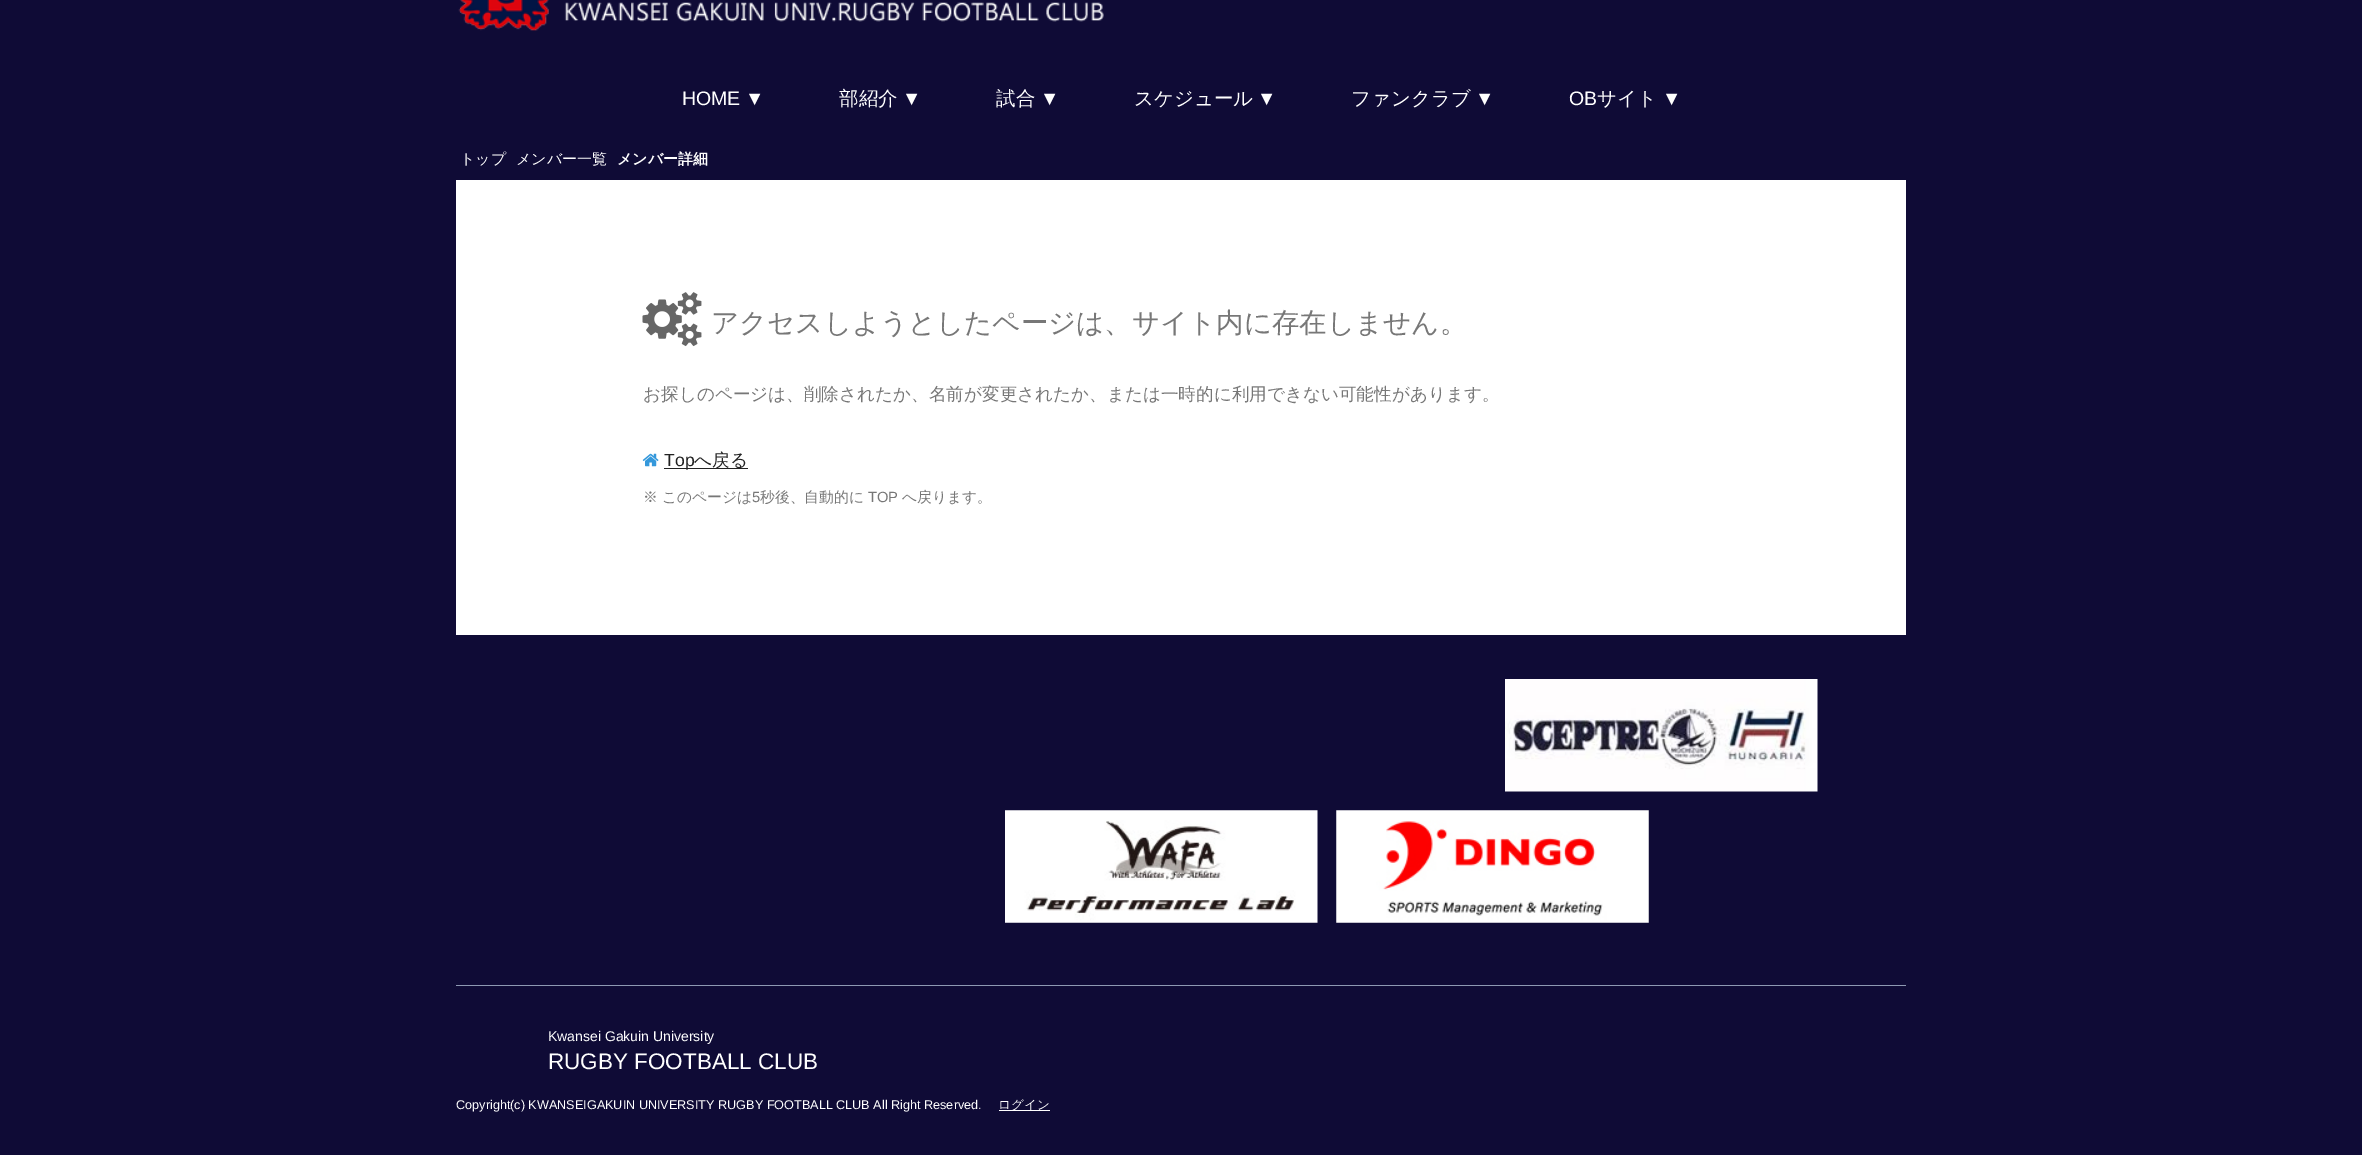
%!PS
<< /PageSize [2362 1155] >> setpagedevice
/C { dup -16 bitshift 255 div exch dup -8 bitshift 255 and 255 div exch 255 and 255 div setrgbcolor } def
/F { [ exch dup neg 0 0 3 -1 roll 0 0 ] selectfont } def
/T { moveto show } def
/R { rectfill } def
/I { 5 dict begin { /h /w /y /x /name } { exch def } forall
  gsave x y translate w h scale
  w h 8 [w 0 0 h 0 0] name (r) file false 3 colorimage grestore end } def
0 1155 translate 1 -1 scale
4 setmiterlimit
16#0F0B36 C
0 0 2362 1155 R
(1.rgb) 458 0 646 31 I
/LiberationSans-Regular 19.5 F
16#FFFFFF C
(HOME) 682 105 T
(▼) 745 105 T
/WenQuanYiZenHei-Medium 19.5 F
(部紹介) 839 105 T
/LiberationSans-Regular 19.5 F
(▼) 902 105 T
/WenQuanYiZenHei-Medium 19.5 F
(試合) 996 105 T
/LiberationSans-Regular 19.5 F
(▼) 1040 105 T
/WenQuanYiZenHei-Medium 19.5 F
(スケジュール) 1134 105 T
/LiberationSans-Regular 19.5 F
(▼) 1257 105 T
/WenQuanYiZenHei-Medium 19.5 F
(ファンクラブ) 1351 105 T
/LiberationSans-Regular 19.5 F
(▼) 1475 105 T
(OB) 1569 105 T
/WenQuanYiZenHei-Medium 19.5 F
(サイト) 1597 105 T
/LiberationSans-Regular 19.5 F
(▼) 1662 105 T
/WenQuanYiZenHei-Medium 15 F
(トップ) 460 164 T
(メンバー一覧) 516 164 T
/WenQuanYiZenHei-Bold 15 F
(メンバー詳細) 617 164 T
456 180 1450 455 R
(2.rgb) 642 292 60 55 I
/WenQuanYiZenHei-Medium 27.5 F
16#777777 C
(アクセスしようとしたページは、サイト内に存在しません。) 711 332 T
/WenQuanYiZenHei-Medium 17.6 F
(お探しのページは、削除されたか、名前が変更されたか、または一時的に利用できない可能性があります。) 643 400 T
(3.rgb) 642 453 17 14 I
16#222222 C
664 468 84 1 R
/LiberationSans-Regular 17.6 F
(Top) 664 466 T
/WenQuanYiZenHei-Medium 17.6 F
(へ戻る) 694 466 T
/WenQuanYiZenHei-Medium 14.75 F
16#777777 C
(※ このページは) 643 502 T
/LiberationSans-Regular 14.75 F
(5) 752 502 T
/WenQuanYiZenHei-Medium 14.75 F
(秒後、自動的に) 760 502 T
/LiberationSans-Regular 14.75 F
(TOP) 868 502 T
/WenQuanYiZenHei-Medium 14.75 F
(へ戻ります。) 902 502 T
(4.rgb) 1505 679 313 113 I
(5.rgb) 1005 810 313 113 I
(6.rgb) 1336 810 313 113 I
16#8E99B3 C
456 985 1450 1 R
/LiberationSans-Regular 14 F
16#FFFFFF C
(Kwansei Gakuin University) 548 1041 T
/LiberationSans-Regular 22.5 F
(RUGBY FOOTBALL CLUB) 548 1069 T
/LiberationSans-Regular 12.65 F
(Copyright\(c\) KWANSEIGAKUIN UNIVERSITY RUGBY FOOTBALL CLUB All Right Reserved.) 456 1109 T
999 1110 51 1 R
/WenQuanYiZenHei-Medium 12.65 F
(ログイン) 998 1109 T
showpage
